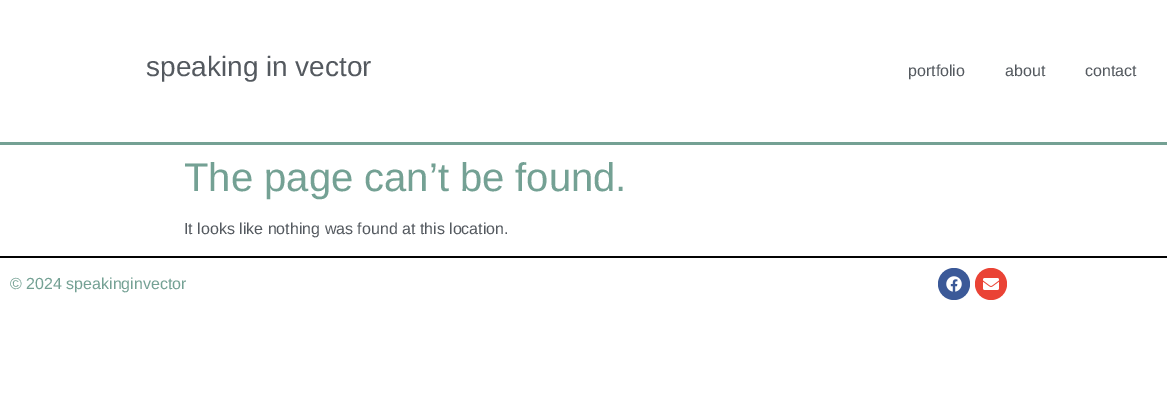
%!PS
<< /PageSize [1167 395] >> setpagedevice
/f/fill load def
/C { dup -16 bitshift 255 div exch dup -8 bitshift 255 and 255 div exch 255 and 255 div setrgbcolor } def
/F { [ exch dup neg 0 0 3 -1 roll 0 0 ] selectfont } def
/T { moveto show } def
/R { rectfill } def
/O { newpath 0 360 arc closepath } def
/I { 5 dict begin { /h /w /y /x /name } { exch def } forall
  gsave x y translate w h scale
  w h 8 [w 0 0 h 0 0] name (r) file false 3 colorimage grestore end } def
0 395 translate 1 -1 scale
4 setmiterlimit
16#FFFFFF C
0 0 1167 395 R
16#74A194 C
0 142 1167 3 R
/LiberationSans-Regular 28 F
16#54595F C
(speaking in vector) 146 76 T
/LiberationSans-Regular 16 F
(portfolio) 908 76 T
(about) 1005 76 T
(contact) 1085 76 T
/LiberationSans-Regular 40 F
16#74A194 C
(The page can’t be found.) 184 191 T
/LiberationSans-Regular 16 F
16#54595F C
(It looks like nothing was found at this location.) 184 234 T
16#030303 C
0 256 1167 2 R
16#74A194 C
(© 2024 speakinginvector) 10 289 T
16#3B5998 C
954 284 16 O f
(1.rgb) 946 276 16 16 I
16#EA4335 C
991 284 16 O f
(2.rgb) 983 278 16 12 I
showpage
